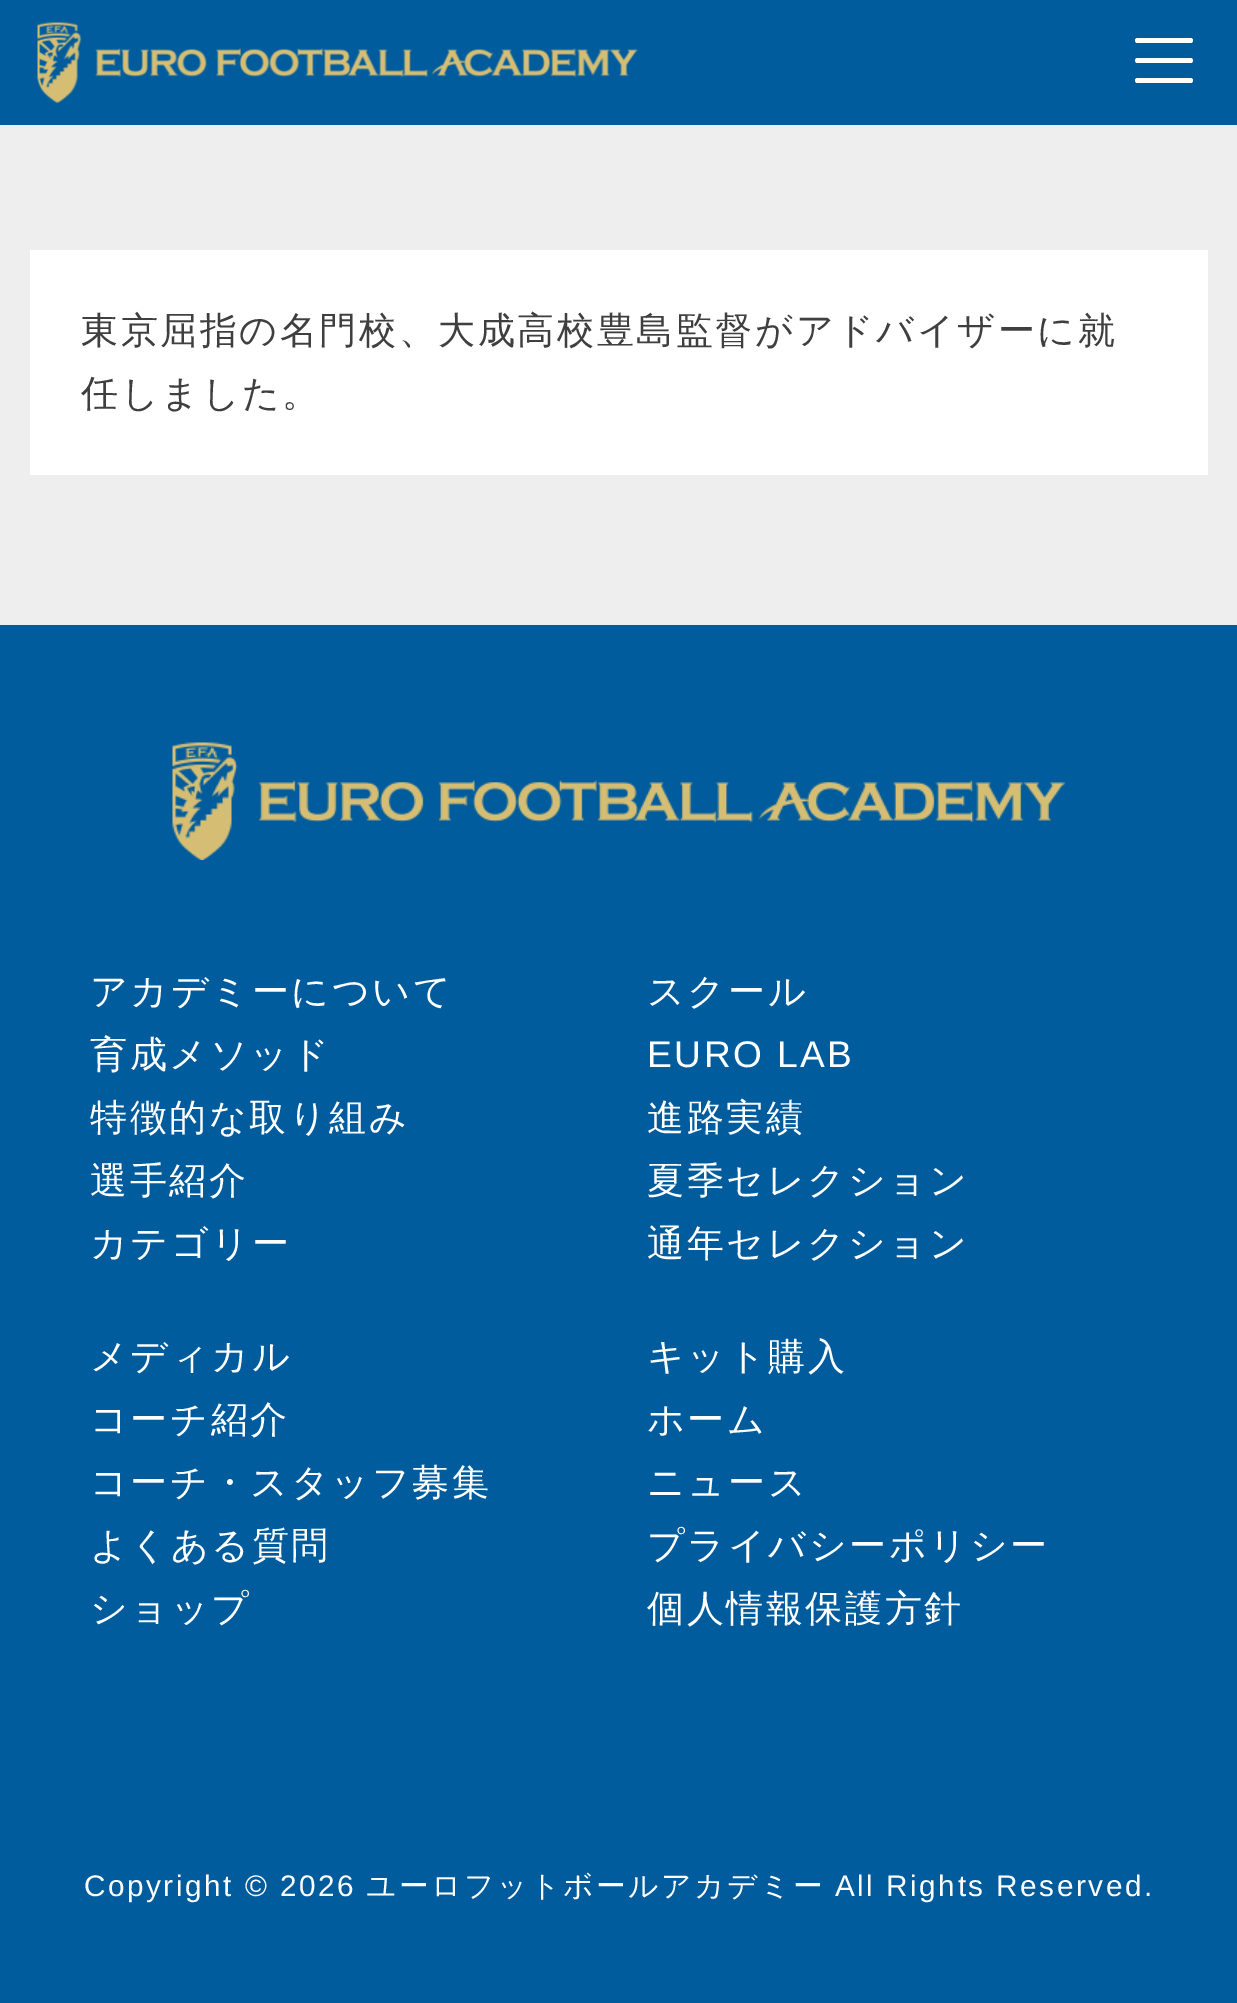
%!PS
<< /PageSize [1237 2003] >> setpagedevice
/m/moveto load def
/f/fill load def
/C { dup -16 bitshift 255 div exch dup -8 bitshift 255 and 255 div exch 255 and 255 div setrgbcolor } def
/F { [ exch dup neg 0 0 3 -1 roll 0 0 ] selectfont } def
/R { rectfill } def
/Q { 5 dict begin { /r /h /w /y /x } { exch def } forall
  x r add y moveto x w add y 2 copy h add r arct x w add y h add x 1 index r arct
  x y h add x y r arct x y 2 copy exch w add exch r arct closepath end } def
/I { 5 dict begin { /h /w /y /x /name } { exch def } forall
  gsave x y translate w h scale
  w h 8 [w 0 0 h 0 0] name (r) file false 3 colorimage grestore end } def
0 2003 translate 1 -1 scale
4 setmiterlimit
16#EEEEEE C
0 0 1237 2003 R
16#005C9D C
0 0 1237 125 R
(1.rgb) 37 21 601 83 I
16#FFFFFF C
1135 38 58 5 2.5 Q f
1135 58 58 5 2.5 Q f
1135 78 58 5 2.5 Q f
30 250 1178 225 R
/WenQuanYiZenHei-Medium 37.1 F
16#3F3F3F C
81 343 m 2.5 0 (東京屈指の名門校、大成高校豊島監督がアドバイザーに就) ashow
81 406 m 2.5 0 (任しました。) ashow
16#015C9D C
0 625 1237 1378 R
(2.rgb) 172 742 893 118 I
16#FFFFFF C
90 1004 m 2.5 0 (アカデミーについて) ashow
90 1067 m 2.5 0 (育成メソッド) ashow
90 1130 m 2.5 0 (特徴的な取り組み) ashow
90 1193 m 2.5 0 (選手紹介) ashow
90 1256 m 2.5 0 (カテゴリー) ashow
647 1004 m 2.5 0 (スクール) ashow
/LiberationSans-Regular 37.1 F
647 1067 m 2.5 0 (EURO LAB) ashow
/WenQuanYiZenHei-Medium 37.1 F
647 1130 m 2.5 0 (進路実績) ashow
647 1193 m 2.5 0 (夏季セレクション) ashow
647 1256 m 2.5 0 (通年セレクション) ashow
90 1369 m 2.5 0 (メディカル) ashow
90 1432 m 2.5 0 (コーチ紹介) ashow
90 1495 m 2.5 0 (コーチ・スタッフ募集) ashow
90 1558 m 2.5 0 (よくある質問) ashow
90 1621 m 2.5 0 (ショップ) ashow
647 1369 m 2.5 0 (キット購入) ashow
647 1432 m 2.5 0 (ホーム) ashow
647 1495 m 2.5 0 (ニュース) ashow
647 1558 m 2.5 0 (プライバシーポリシー) ashow
647 1621 m 2.5 0 (個人情報保護方針) ashow
/LiberationSans-Regular 29.75 F
84 1896 m 2.5 0 (Copyright © 2026) ashow
/WenQuanYiZenHei-Medium 29.75 F
366 1896 m 2.5 0 (ユーロフットボールアカデミー) ashow
/LiberationSans-Regular 29.75 F
835 1896 m 2.5 0 (All Rights Reserved.) ashow
showpage
